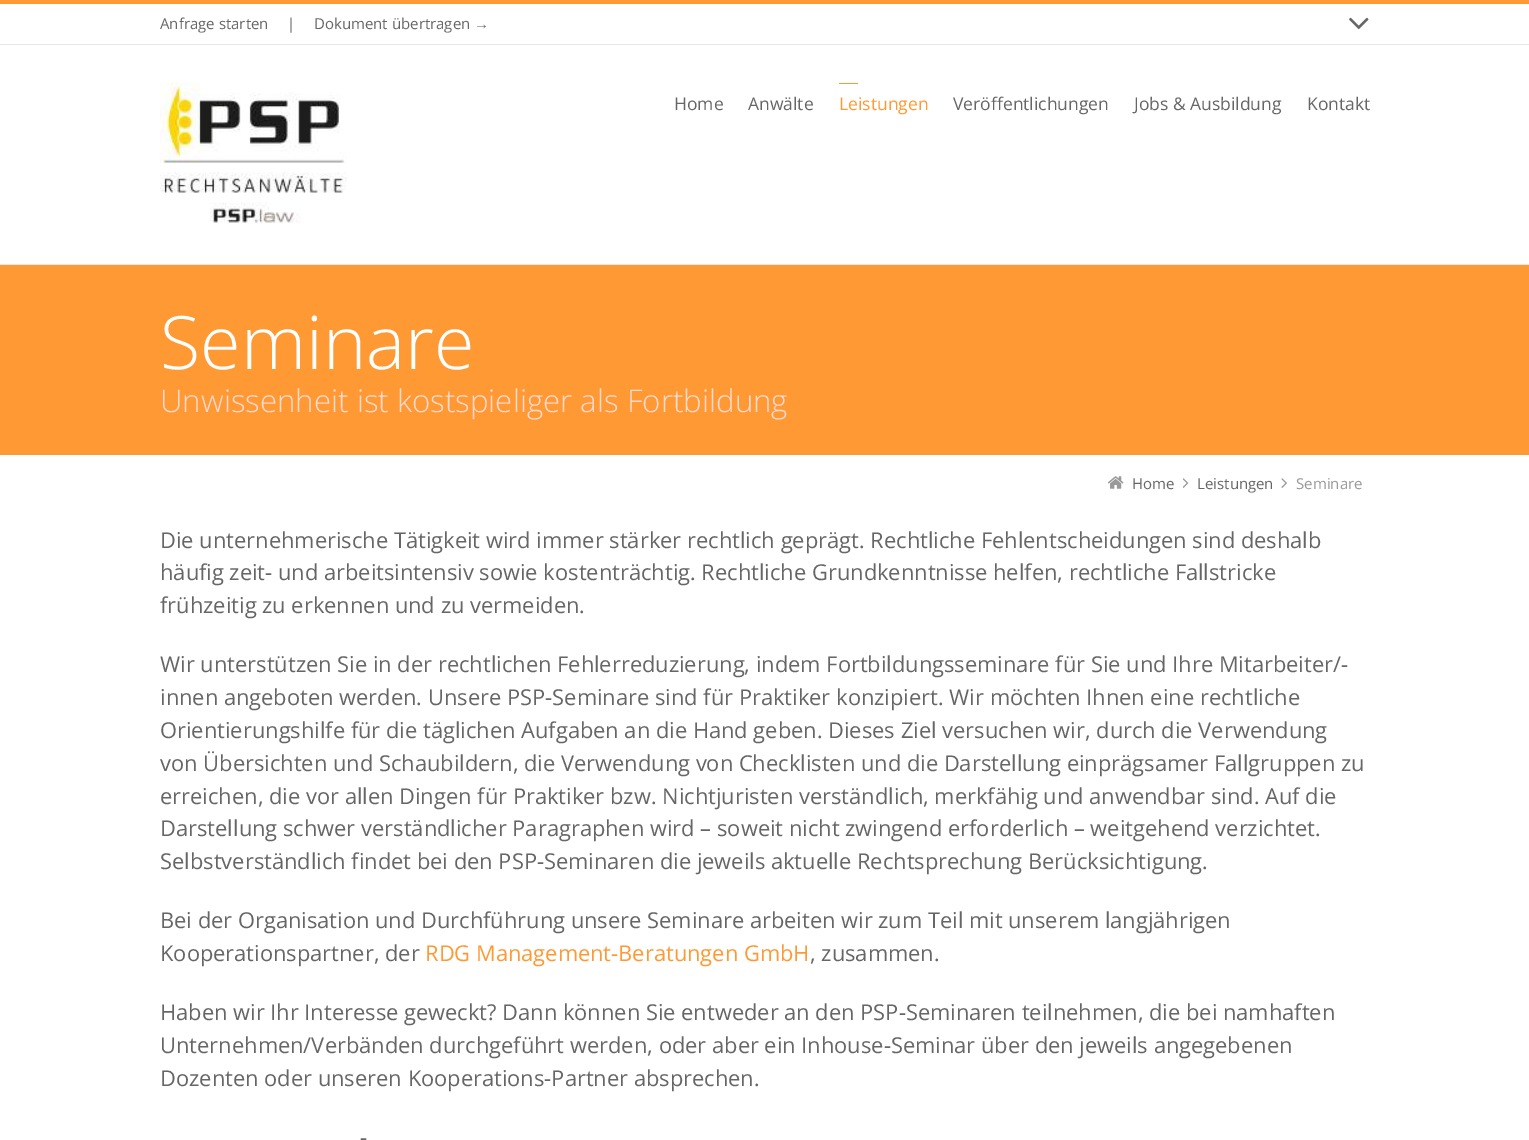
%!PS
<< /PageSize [1529 1140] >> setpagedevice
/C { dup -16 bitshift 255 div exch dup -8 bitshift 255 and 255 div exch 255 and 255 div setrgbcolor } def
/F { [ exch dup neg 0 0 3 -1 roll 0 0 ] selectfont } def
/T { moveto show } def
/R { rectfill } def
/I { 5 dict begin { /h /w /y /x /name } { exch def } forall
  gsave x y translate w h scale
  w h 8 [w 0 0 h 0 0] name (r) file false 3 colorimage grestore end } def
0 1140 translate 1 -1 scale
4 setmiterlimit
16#FF9933 C
0 0 1529 1140 R
16#FFFFFF C
0 4 1529 40 R
16#E6E6E6 C
0 44 1529 1 R
/OpenSans-Regular 15 F
16#666666 C
(Anfrage starten) 160 29 T
(|) 287 29 T
(Dokument übertragen) 314 29 T
/LiberationSerif-Regular 15 F
(→) 474 29 T
(1.rgb) 1349 17 20 13 I
16#FFFFFF C
0 45 1529 219 R
16#E6E6E6 C
0 264 1529 1 R
(2.rgb) 160 82 187 141 I
/OpenSans-Regular 17.5 F
16#666666 C
(Home) 674 110 T
(Anwälte) 748 110 T
16#FF9933 C
839 83 19 1 R
(Leistungen) 839 110 T
16#666666 C
(Veröffentlichungen) 953 110 T
(Jobs & Ausbildung) 1134 110 T
(Kontakt) 1307 110 T
/OpenSans-Light 73.75 F
16#FFFFFF C
(Seminare) 160 369 T
/OpenSans-Light 31.25 F
16#FEDAD4 C
(Unwissenheit ist kostspieliger als Fortbildung) 160 412 T
16#FFFFFF C
0 455 1529 685 R
(3.rgb) 1108 476 16 13 I
/OpenSans-Regular 15 F
16#666666 C
(Home) 1132 489 T
(4.rgb) 1183 478 6 10 I
(Leistungen) 1197 489 T
(5.rgb) 1281 478 6 10 I
16#999999 C
(Seminare) 1296 489 T
/OpenSans-Regular 21.88 F
16#666666 C
(Die unternehmerische Tätigkeit wird immer stärker rechtlich geprägt. Rechtliche Fehlentscheidungen sind deshalb) 160 548 T
(häufig zeit- und arbeitsintensiv sowie kostenträchtig. Rechtliche Grundkenntnisse helfen, rechtliche Fallstricke) 160 580 T
(frühzeitig zu erkennen und zu vermeiden.) 160 613 T
(Wir unterstützen Sie in der rechtlichen Fehlerreduzierung, indem Fortbildungsseminare für Sie und Ihre Mitarbeiter/-) 160 672 T
(innen angeboten werden. Unsere PSP-Seminare sind für Praktiker konzipiert. Wir möchten Ihnen eine rechtliche) 160 705 T
(Orientierungshilfe für die täglichen Aufgaben an die Hand geben. Dieses Ziel versuchen wir, durch die Verwendung) 160 738 T
(von Übersichten und Schaubildern, die Verwendung von Checklisten und die Darstellung einprägsamer Fallgruppen zu) 160 771 T
(erreichen, die vor allen Dingen für Praktiker bzw. Nichtjuristen verständlich, merkfähig und anwendbar sind. Auf die) 160 804 T
(Darstellung schwer verständlicher Paragraphen wird – soweit nicht zwingend erforderlich – weitgehend verzichtet.) 160 836 T
(Selbstverständlich findet bei den PSP-Seminaren die jeweils aktuelle Rechtsprechung Berücksichtigung.) 160 869 T
(Bei der Organisation und Durchführung unsere Seminare arbeiten wir zum Teil mit unserem langjährigen) 160 928 T
(Kooperationspartner, der) 160 961 T
16#FF9933 C
(RDG Management-Beratungen GmbH) 425 961 T
16#666666 C
(, zusammen.) 810 961 T
(Haben wir Ihr Interesse geweckt? Dann können Sie entweder an den PSP-Seminaren teilnehmen, die bei namhaften) 160 1020 T
(Unternehmen/Verbänden durchgeführt werden, oder aber ein Inhouse-Seminar über den jeweils angegebenen) 160 1053 T
(Dozenten oder unseren Kooperations-Partner absprechen.) 160 1086 T
(-) 360 1145 T
showpage
